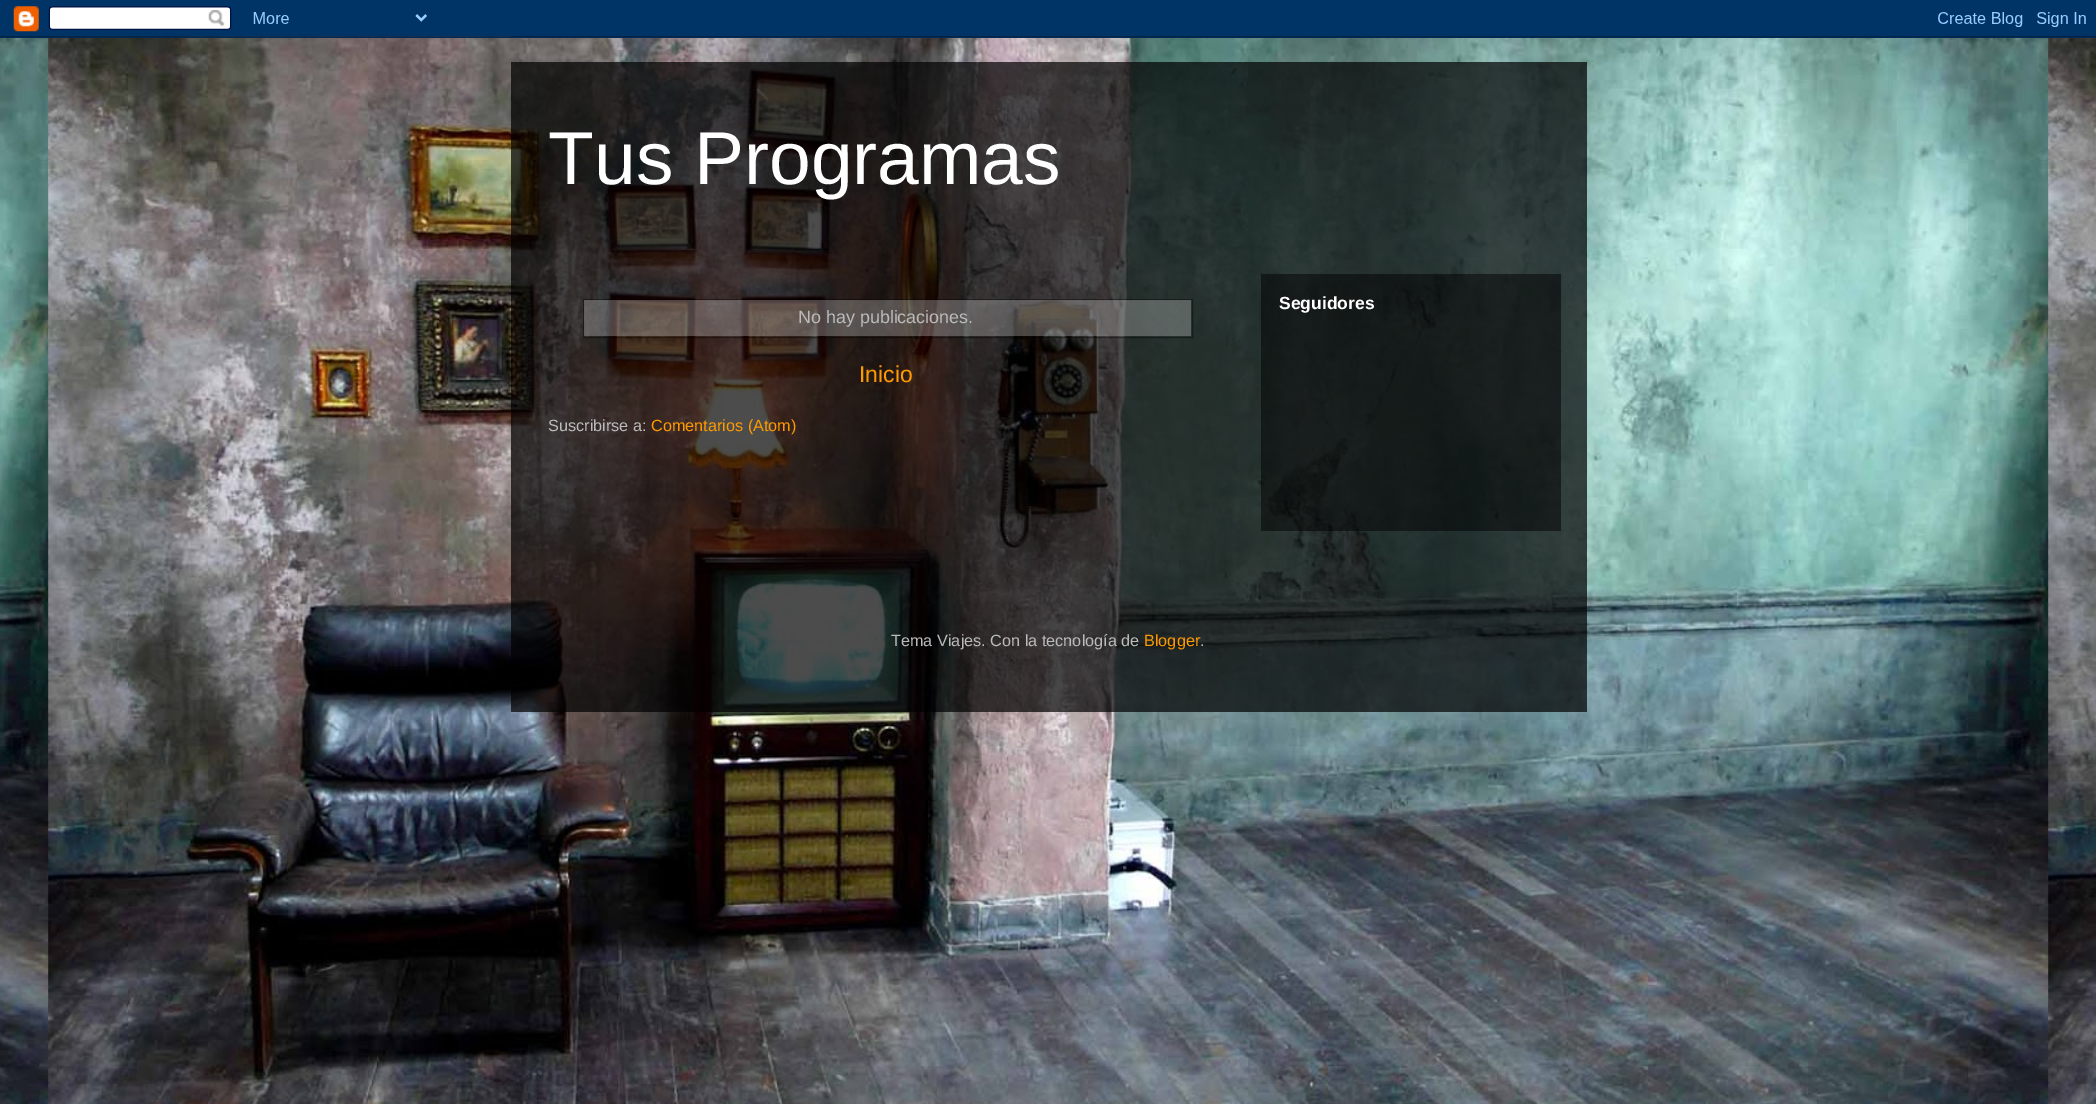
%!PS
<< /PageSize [2096 1104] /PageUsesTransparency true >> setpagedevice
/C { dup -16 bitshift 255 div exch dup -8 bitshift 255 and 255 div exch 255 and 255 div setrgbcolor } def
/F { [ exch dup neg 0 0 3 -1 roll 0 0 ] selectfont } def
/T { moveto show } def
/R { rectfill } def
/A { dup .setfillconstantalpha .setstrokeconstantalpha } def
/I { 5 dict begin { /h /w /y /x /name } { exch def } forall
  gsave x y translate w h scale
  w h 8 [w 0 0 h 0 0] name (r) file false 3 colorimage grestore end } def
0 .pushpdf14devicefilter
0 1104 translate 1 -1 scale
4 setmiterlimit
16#FFFFFF C
0 0 2096 1104 R
(1.rgb) 0 36 2096 1068 I
(2.rgb) 0 0 2096 38 I
0.7 A
16#000000 C
511 62 1076 650 R
/LiberationSans-Regular 75 F
1 A
16#FFFFFF C
(Tus Programas) 548 184 T
0.5 A
16#000000 C
1261 274 300 257 R
/LiberationSans-Bold 17.5 F
1 A
16#FFFFFF C
(Seguidores) 1279 309 T
0.4 A
16#000000 C
583.5 299.5 609 38 rectstroke
0.32 A
16#CCCCCC C
584 300 607 36 R
/LiberationSans-Regular 17.9 F
1 A
16#BBBBBB C
(No hay publicaciones.) 798 323 T
/LiberationSans-Regular 23 F
16#FF9900 C
(Inicio) 859 382 T
/LiberationSans-Regular 16.25 F
16#BBBBBB C
(Suscribirse a:) 548 431 T
16#FF9900 C
(Comentarios \(Atom\)) 651 431 T
16#BBBBBB C
(Tema Viajes. Con la tecnología de) 891 646 T
16#FF9900 C
(Blogger) 1144 646 T
16#BBBBBB C
(.) 1200 646 T
.poppdf14devicefilter showpage
